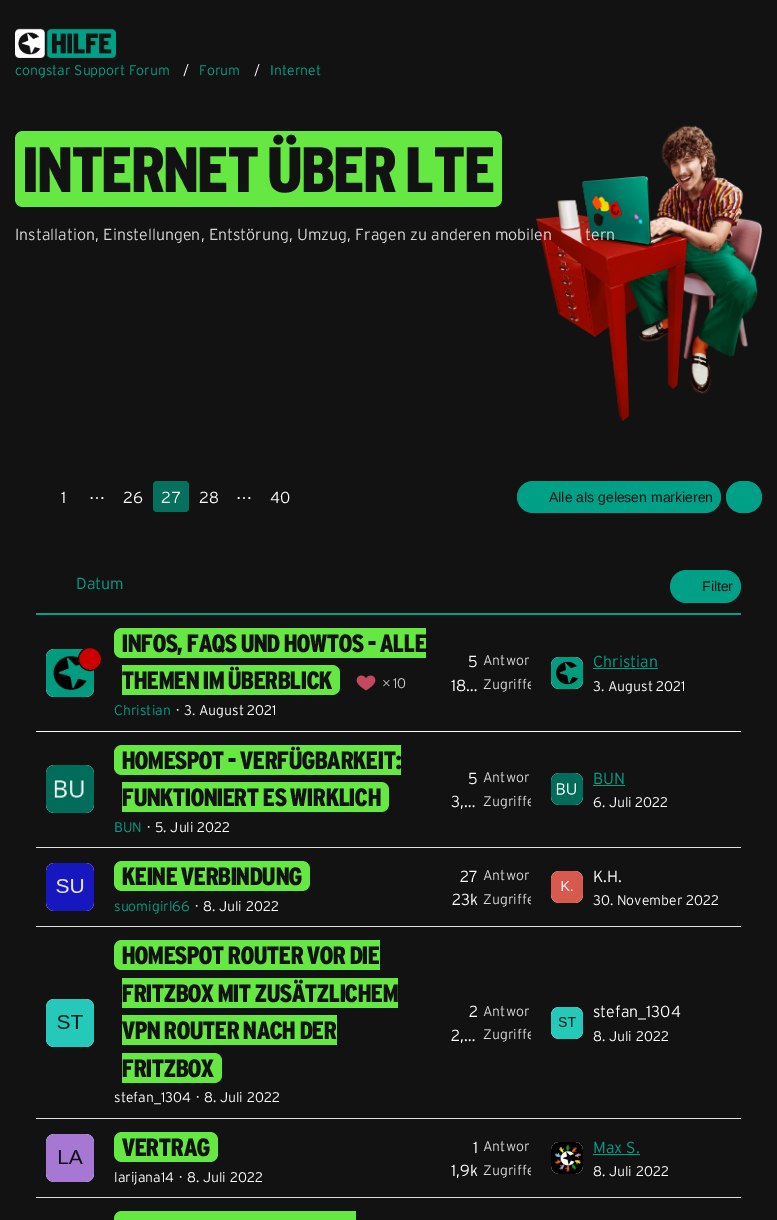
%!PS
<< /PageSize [777 1220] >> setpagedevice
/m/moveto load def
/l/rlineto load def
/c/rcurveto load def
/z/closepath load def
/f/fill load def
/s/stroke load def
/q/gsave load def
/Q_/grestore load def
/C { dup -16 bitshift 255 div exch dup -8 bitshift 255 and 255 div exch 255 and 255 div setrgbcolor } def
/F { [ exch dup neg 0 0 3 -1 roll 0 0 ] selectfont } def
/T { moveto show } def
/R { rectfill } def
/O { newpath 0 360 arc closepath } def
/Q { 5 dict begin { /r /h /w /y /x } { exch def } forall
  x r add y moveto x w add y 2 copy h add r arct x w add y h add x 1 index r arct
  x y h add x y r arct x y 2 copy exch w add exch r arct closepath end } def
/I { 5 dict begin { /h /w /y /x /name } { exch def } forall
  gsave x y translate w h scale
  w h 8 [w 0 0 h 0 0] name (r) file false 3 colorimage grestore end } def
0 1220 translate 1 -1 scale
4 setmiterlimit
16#121212 C
0 0 777 1220 R
(1.rgb) 15 28 101 30 I
/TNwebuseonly-Light 14 F
16#00A086 C
(congstar Support Forum) 15 75 T
16#FFFFFF C
(/) 183 75 T
16#00A086 C
(Forum) 199 75 T
16#FFFFFF C
(/) 254 75 T
16#00A086 C
(Internet) 270 75 T
(2.rgb) 536 125 226 296 I
16#65E842 C
15 131 487 76 8 Q f
/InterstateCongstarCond-Black 64 F
16#121212 C
(INTERNET ÜBER LTE) 23 192 T
/TNwebuseonly-Light 16 F
16#D8D8D8 C
(Installation, Einstellungen, Entstörung, Umzug, Fragen zu anderen mobilen) 15 240 T
(tern) 585 240 T
16#FFFFFF C
(1) 61 503 T
/DejaVuSans-Regular 16 F
(⋯) 89 503 T
/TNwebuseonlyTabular-Light 16 F
(26) 123 503 T
16#06705F C
153 481 36 31 4 Q f
16#FFFFFF C
(27) 161 503 T
(28) 199 503 T
/DejaVuSans-Regular 16 F
(⋯) 236 503 T
/TNwebuseonly-Light 16 F
(40) 270 503 T
16#00A086 C
517 481 204 32 16 Q f
/LiberationSans-Regular 14 F
16#121212 C
(Alle als gelesen markieren) 549 502 T
16#00A086 C
726 481 36 32 16 Q f
36 613 705 2 R
/TNwebuseonly-Light 16 F
(Datum) 76 589 T
670 570 71 33 16.5 Q f
/LiberationSans-Regular 14 F
16#121212 C
(Filter) 702 591 T
16#FFFFFF C
46 649 48 48 8 Q f
(3.rgb) 46 649 48 48 I
16#CC0001 C
90 659 11.5 O q f Q_
16#121212 C
s
16#65E842 C
122 628 m 304 0 l 0 30 l -304 0 l -4.5 0 -8 -3.5 -8 -8 c 0 -14 l 0 -4.5 3.5 -8 8 -8 c z f
/InterstateCongstarCond-Black 25 F
16#121212 C
(INFOS, FAQS UND HOWTOS - ALLE) 122 652 T
16#65E842 C
122 665 m 210 0 l 4.5 0 8 3.5 8 8 c 0 14 l 0 4.5 -3.5 8 -8 8 c -210 0 l z f
16#121212 C
(THEMEN IM ÜBERBLICK) 122 689 T
(4.rgb) 356 675 20 16 I
/TNwebuseonly-Light 14 F
16#C4C4C4 C
(×) 382 688 T
(10) 393 688 T
16#00A086 C
(Christian) 114 715 T
16#FFFFFF C
(·) 176 715 T
(3. August 2021) 184 715 T
/TNwebuseonly-Light 16 F
(5) 468 667 T
/TNwebuseonly-Light 14 F
16#D8D8D8 C
(Antwor) 483 665 T
/TNwebuseonly-Light 16 F
16#FFFFFF C
(18…) 451 691 T
q
483 674 48 21 rectclip
/TNwebuseonly-Light 14 F
16#D8D8D8 C
(Zugriffe) 483 689 T
Q_
551 657 32 32 8 Q f
(5.rgb) 551 657 32 32 I
16#00A086 C
(Christian) 593 667 T
593 668 65 1 R
/TNwebuseonly-Light 14 F
16#FFFFFF C
(3. August 2021) 593 691 T
36 731 705 1 R
46 765 48 48 8 Q f
(6.rgb) 46 765 48 48 I
16#65E842 C
122 745 m 279 0 l 0 30 l -279 0 l -4.5 0 -8 -3.5 -8 -8 c 0 -14 l 0 -4.5 3.5 -8 8 -8 c z f
/InterstateCongstarCond-Black 25 F
16#121212 C
(HOMESPOT - VERFÜGBARKEIT:) 122 769 T
16#65E842 C
122 782 m 259 0 l 4.5 0 8 3.5 8 8 c 0 14 l 0 4.5 -3.5 8 -8 8 c -259 0 l z f
16#121212 C
(FUNKTIONIERT ES WIRKLICH) 122 806 T
/TNwebuseonly-Light 14 F
16#00A086 C
(BUN) 114 832 T
16#FFFFFF C
(·) 147 832 T
(5. Juli 2022) 155 832 T
/TNwebuseonly-Light 16 F
(5) 468 784 T
/TNwebuseonly-Light 14 F
16#D8D8D8 C
(Antwor) 483 782 T
/TNwebuseonly-Light 16 F
16#FFFFFF C
(3,…) 451 807 T
q
483 791 48 21 rectclip
/TNwebuseonly-Light 14 F
16#D8D8D8 C
(Zugriffe) 483 806 T
Q_
551 773 32 32 8 Q f
(7.rgb) 551 773 32 32 I
16#00A086 C
(BUN) 593 784 T
593 785 32 1 R
/TNwebuseonly-Light 14 F
16#FFFFFF C
(6. Juli 2022) 593 807 T
16#E0E0E0 C
36 847 705 1 R
16#FFFFFF C
46 863 48 48 8 Q f
(8.rgb) 46 863 48 48 I
16#65E842 C
114 861 196 30 8 Q f
/InterstateCongstarCond-Black 25 F
16#121212 C
(KEINE VERBINDUNG) 122 885 T
/TNwebuseonly-Light 14 F
16#00A086 C
(suomigirl66) 114 911 T
16#FFFFFF C
(·) 195 911 T
(8. Juli 2022) 203 911 T
/TNwebuseonly-Light 16 F
(27) 460 882 T
/TNwebuseonly-Light 14 F
16#D8D8D8 C
(Antwor) 483 880 T
/TNwebuseonly-Light 16 F
16#FFFFFF C
(23k) 452 905 T
q
483 889 48 21 rectclip
/TNwebuseonly-Light 14 F
16#D8D8D8 C
(Zugriffe) 483 904 T
Q_
551 871 32 32 8 Q f
(9.rgb) 551 871 32 32 I
(K.H.) 593 882 T
/TNwebuseonly-Light 14 F
(30. November 2022) 593 905 T
16#E0E0E0 C
36 926 705 1 R
16#FFFFFF C
46 999 48 48 8 Q f
(10.rgb) 46 999 48 48 I
16#65E842 C
122 940 m 258 0 l 0 30 l -258 0 l -4.5 0 -8 -3.5 -8 -8 c 0 -14 l 0 -4.5 3.5 -8 8 -8 c z f
/InterstateCongstarCond-Black 25 F
16#121212 C
(HOMESPOT ROUTER VOR DIE) 122 964 T
16#65E842 C
122 978 276 30 R
16#121212 C
(FRITZBOX MIT ZUSÄTZLICHEM) 122 1002 T
16#65E842 C
122 1015 215 30 R
16#121212 C
(VPN ROUTER NACH DER) 122 1039 T
16#65E842 C
122 1053 m 92 0 l 4.5 0 8 3.5 8 8 c 0 14 l 0 4.5 -3.5 8 -8 8 c -92 0 l z f
16#121212 C
(FRITZBOX) 122 1077 T
/TNwebuseonly-Light 14 F
16#FFFFFF C
(stefan_1304) 114 1102 T
(·) 196 1102 T
(8. Juli 2022) 204 1102 T
/TNwebuseonly-Light 16 F
(2) 469 1017 T
/TNwebuseonly-Light 14 F
16#D8D8D8 C
(Antwor) 483 1016 T
/TNwebuseonly-Light 16 F
16#FFFFFF C
(2,…) 451 1041 T
q
483 1024 48 21 rectclip
/TNwebuseonly-Light 14 F
16#D8D8D8 C
(Zugriffe) 483 1039 T
Q_
551 1007 32 32 8 Q f
(11.rgb) 551 1007 32 32 I
(stefan_1304) 593 1017 T
/TNwebuseonly-Light 14 F
(8. Juli 2022) 593 1041 T
16#E0E0E0 C
36 1118 705 1 R
16#FFFFFF C
46 1134 48 48 8 Q f
(12.rgb) 46 1134 48 48 I
16#65E842 C
114 1132 104 30 8 Q f
/InterstateCongstarCond-Black 25 F
16#121212 C
(VERTRAG) 122 1156 T
/TNwebuseonly-Light 14 F
16#FFFFFF C
(larijana14) 114 1182 T
(·) 179 1182 T
(8. Juli 2022) 187 1182 T
/TNwebuseonly-Light 16 F
(1) 473 1153 T
/TNwebuseonly-Light 14 F
16#D8D8D8 C
(Antwor) 483 1151 T
/TNwebuseonly-Light 16 F
16#FFFFFF C
(1,9k) 451 1176 T
q
483 1160 48 20 rectclip
/TNwebuseonly-Light 14 F
16#D8D8D8 C
(Zugriffe) 483 1175 T
Q_
551 1142 32 32 8 Q f
(13.rgb) 551 1142 32 32 I
16#00A086 C
(Max S.) 593 1153 T
593 1154 47 1 R
/TNwebuseonly-Light 14 F
16#FFFFFF C
(8. Juli 2022) 593 1176 T
16#E0E0E0 C
36 1197 705 1 R
16#65E842 C
122 1211 m 234 0 l 0 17 l -234 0 l -4.5 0 -8 -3.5 -8 -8 c 0 -1 l 0 -4.5 3.5 -8 8 -8 c z f
showpage
